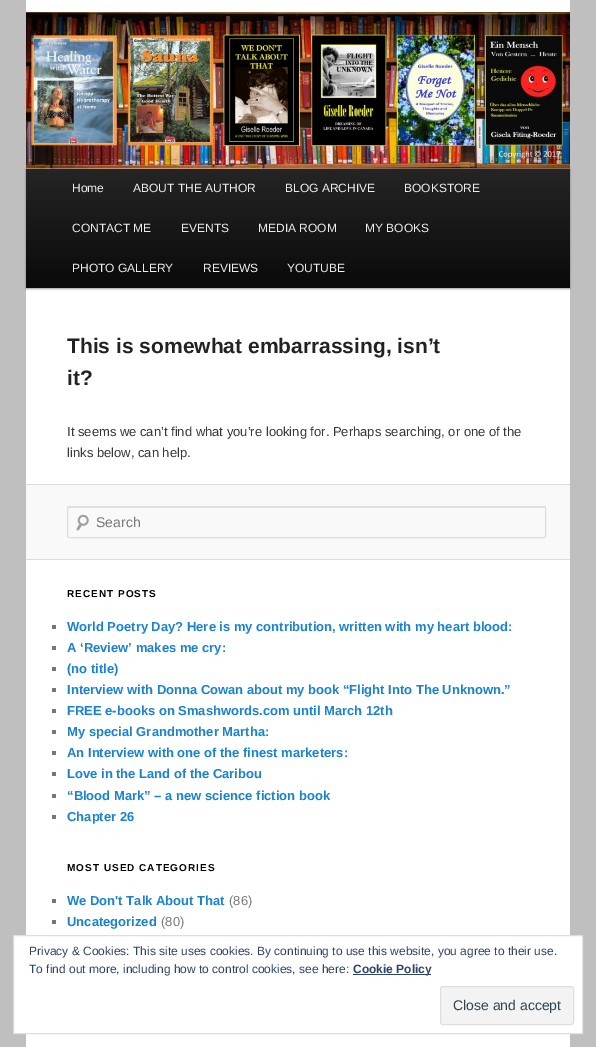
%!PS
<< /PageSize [596 1047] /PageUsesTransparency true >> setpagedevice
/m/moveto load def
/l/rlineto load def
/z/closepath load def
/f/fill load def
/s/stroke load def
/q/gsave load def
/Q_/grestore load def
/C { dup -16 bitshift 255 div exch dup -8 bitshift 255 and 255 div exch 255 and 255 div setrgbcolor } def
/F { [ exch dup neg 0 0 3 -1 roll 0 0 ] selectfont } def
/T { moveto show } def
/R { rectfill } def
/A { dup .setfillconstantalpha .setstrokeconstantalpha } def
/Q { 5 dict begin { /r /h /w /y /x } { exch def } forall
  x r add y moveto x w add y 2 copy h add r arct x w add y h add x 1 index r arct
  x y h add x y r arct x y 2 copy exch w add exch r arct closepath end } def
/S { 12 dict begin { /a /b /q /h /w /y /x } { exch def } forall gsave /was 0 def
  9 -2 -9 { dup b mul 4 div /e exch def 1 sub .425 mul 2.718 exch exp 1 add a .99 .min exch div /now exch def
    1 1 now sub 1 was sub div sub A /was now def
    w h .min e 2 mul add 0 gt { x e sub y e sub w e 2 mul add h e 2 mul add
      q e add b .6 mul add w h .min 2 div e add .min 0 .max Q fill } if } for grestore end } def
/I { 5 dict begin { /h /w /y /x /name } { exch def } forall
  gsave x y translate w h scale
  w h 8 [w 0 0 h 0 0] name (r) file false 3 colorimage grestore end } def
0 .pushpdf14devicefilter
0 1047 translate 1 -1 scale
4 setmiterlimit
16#BFBFBF C
0 0 596 1047 R
16#FFFFFF C
26 0 544 1047 R
16#000000 C
26 169 544 120 0 1 .4 S
(1.rgb) 26 12 544 157 I
q 26 169 m 544 0 l 0 119 l -544 0 l z clip newpath
<< /ShadingType 2 /ColorSpace /DeviceRGB /Coords [298 168 298 288] /Extend [true true] /Function << /FunctionType 2 /Domain [0 1] /C0 [.145 .145 .145] /C1 [.039 .039 .039] /N 1 >> >> shfill Q_
/LiberationSans-Regular 12 F
16#EEEEEE C
(Home) 72 192 T
(ABOUT THE AUTHOR) 133 192 T
(BLOG ARCHIVE) 285 192 T
(BOOKSTORE) 404 192 T
(CONTACT ME) 72 232 T
(EVENTS) 181 232 T
(MEDIA ROOM) 258 232 T
(MY BOOKS) 365 232 T
(PHOTO GALLERY) 72 272 T
(REVIEWS) 203 272 T
(YOUTUBE) 287 272 T
/LiberationSans-Bold 21 F
16#222222 C
(This is somewhat embarrassing, isn’t) 67 353 T
(it?) 67 385 T
/LiberationSans-Regular 13 F
16#373737 C
(It seems we can’t find what you’re looking for. Perhaps searching, or one of the) 67 436 T
(links below, can help.) 67 457 T
16#F9F9F9 C
26 485 544 74 R
16#DDDDDD C
26 484 544 1 R
26 559 544 1 R
(2.rgb) 76 514 13 17 I
16#E0E0E0 C
69 507 m -1 1 l 477 0 l -1 -1 l z f
16#DDDDDD C
67.5 506.5 478 31 1.5 Q s
/LiberationSans-Regular 14 F
16#777777 C
(Search) 96 527 T
/LiberationSans-Bold 10 F
16#000000 C
67 597 m 1 0 (RECENT POSTS) ashow
16#777777 C
52 625 4 4 R
/LiberationSans-Bold 13 F
16#1982D1 C
(World Poetry Day? Here is my contribution, written with my heart blood:) 67 631 T
16#777777 C
52 646 4 4 R
16#1982D1 C
(A ‘Review’ makes me cry:) 67 652 T
16#777777 C
52 667 4 4 R
16#1982D1 C
(\(no title\)) 67 673 T
16#777777 C
52 688 4 4 R
16#1982D1 C
(Interview with Donna Cowan about my book “Flight Into The Unknown.”) 67 694 T
16#777777 C
52 709 4 4 R
16#1982D1 C
(FREE e-books on Smashwords.com until March 12th) 67 715 T
16#777777 C
52 730 4 4 R
16#1982D1 C
(My special Grandmother Martha:) 67 736 T
16#777777 C
52 751 4 4 R
16#1982D1 C
(An Interview with one of the finest marketers:) 67 757 T
16#777777 C
52 772 4 4 R
16#1982D1 C
(Love in the Land of the Caribou) 67 778 T
16#777777 C
52 794 4 4 R
16#1982D1 C
(“Blood Mark” – a new science fiction book) 67 800 T
16#777777 C
52 815 4 4 R
16#1982D1 C
(Chapter 26) 67 821 T
/LiberationSans-Bold 10 F
16#000000 C
67 871 m 1 0 (MOST USED CATEGORIES) ashow
16#777777 C
52 899 4 4 R
/LiberationSans-Bold 13 F
16#1982D1 C
(We Don't Talk About That) 67 905 T
/LiberationSans-Regular 13 F
16#777777 C
(\(86\)) 229 905 T
52 920 4 4 R
/LiberationSans-Bold 13 F
16#1982D1 C
(Uncategorized) 67 926 T
/LiberationSans-Regular 13 F
16#777777 C
(\(80\)) 161 926 T
16#FFFFFF C
13.5 935.5 m 569 0 l 0 98 l -569 0 l z q f Q_
16#DEDEDE C
s
/LiberationSans-Regular 12 F
16#2E4467 C
(Privacy & Cookies: This site uses cookies. By continuing to use this website, you agree to their use.) 29 955 T
(To find out more, including how to control cookies, see here:) 29 973 T
353 974 78 1 R
/LiberationSans-Bold 12 F
(Cookie Policy) 353 973 T
16#F3F3F3 C
440.5 986.5 133 38 2.5 Q q f Q_
16#DEDEDE C
s
/LiberationSans-Regular 14 F
16#2E4453 C
(Close and accept) 453 1010 T
.poppdf14devicefilter showpage
